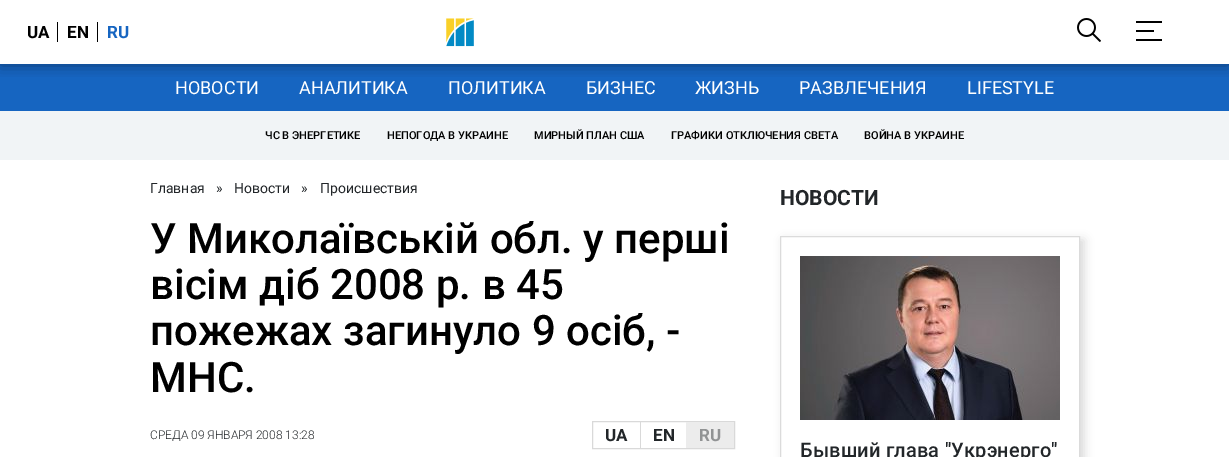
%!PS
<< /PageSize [1229 457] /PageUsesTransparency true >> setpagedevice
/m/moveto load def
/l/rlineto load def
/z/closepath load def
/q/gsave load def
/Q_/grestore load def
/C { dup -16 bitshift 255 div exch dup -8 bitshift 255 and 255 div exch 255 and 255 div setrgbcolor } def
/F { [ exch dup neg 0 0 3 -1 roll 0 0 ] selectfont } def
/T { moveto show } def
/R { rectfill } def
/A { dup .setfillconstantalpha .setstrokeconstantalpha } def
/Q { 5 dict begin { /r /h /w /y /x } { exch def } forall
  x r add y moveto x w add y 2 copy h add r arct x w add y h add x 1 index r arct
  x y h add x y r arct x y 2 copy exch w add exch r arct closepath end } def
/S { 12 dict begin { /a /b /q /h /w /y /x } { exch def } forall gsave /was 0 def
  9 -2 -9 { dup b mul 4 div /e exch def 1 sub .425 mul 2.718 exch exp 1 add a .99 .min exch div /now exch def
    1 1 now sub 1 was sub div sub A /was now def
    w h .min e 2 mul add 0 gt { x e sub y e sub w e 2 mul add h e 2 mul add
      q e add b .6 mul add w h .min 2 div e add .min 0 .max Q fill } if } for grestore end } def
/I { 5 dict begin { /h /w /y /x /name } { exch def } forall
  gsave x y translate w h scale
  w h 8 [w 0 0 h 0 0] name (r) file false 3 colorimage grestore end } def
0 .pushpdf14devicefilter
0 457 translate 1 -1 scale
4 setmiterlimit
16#FFFFFF C
0 0 1229 457 R
16#1665C1 C
0 64 1229 47 R
q
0 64 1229 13 rectclip
16#000000 C
0 1 1229 64 0 7.5 .38 S
Q_
/Roboto-Bold 17 F
16#000000 C
(UA) 27 38 T
57 22 1 20 R
(EN) 67 38 T
97 22 1 20 R
16#1665C1 C
(RU) 107 38 T
(1.rgb) 446 18 28 29 I
(2.rgb) 1077 18 24 24 I
16#000000 C
1136 21 26 2 R
1136 30 18 2 R
1136 39 26 2 R
/Roboto-Regular 18 F
16#FFFFFF C
(НОВОСТИ) 175 94 T
(АНАЛИТИКА) 299 94 T
(ПОЛИТИКА) 448 94 T
(БИЗНЕС) 586 94 T
(ЖИЗНЬ) 695 94 T
(РАЗВЛЕЧЕНИЯ) 799 94 T
(LIFESTYLE) 967 94 T
16#F1F4F6 C
0 111 1229 49 R
/Roboto-Medium 11 F
16#000000 C
(ЧС В ЭНЕРГЕТИКЕ) 265 139 T
(НЕПОГОДА В УКРАИНЕ) 387 139 T
(МИРНЫЙ ПЛАН США) 534 139 T
(ГРАФИКИ ОТКЛЮЧЕНИЯ СВЕТА) 671 139 T
(ВОЙНА В УКРАИНЕ) 864 139 T
/Roboto-Regular 14 F
16#222629 C
(Главная) 150 193 T
(») 216 193 T
(Новости) 234 193 T
(») 301 193 T
(Происшествия) 320 193 T
/Roboto-Medium 42 F
16#000000 C
(У Миколаївській обл. у перші) 150 253 T
(вісім діб 2008 р. в 45) 150 299 T
(пожежах загинуло 9 осіб, -) 150 345 T
(МНС.) 150 392 T
/Roboto-Light 12 F
16#222629 C
(СРЕДА 09 ЯНВАРЯ 2008 13:28) 150 439 T
16#D9D9D9 C
592.5 421.5 142 27 rectstroke
/Roboto-Bold 17 F
16#222629 C
(UA) 605 441 T
16#D9D9D9 C
640 422 1 26 R
16#222629 C
(EN) 653 441 T
16#ECECEC C
686 422 48 26 R
16#919394 C
(RU) 699 441 T
/Roboto-Bold 21 F
16#222629 C
(НОВОСТИ) 780 205 T
q
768 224 m 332 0 l 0 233 l -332 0 l z 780 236 m 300 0 l 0 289 l -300 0 l z eoclip newpath
16#000000 C
784 240 300 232 0 5 .15 S
Q_
16#DBDBDB C
780.5 236.5 299 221 rectstroke
(3.rgb) 800 256 260 164 I
/Roboto-Medium 20 F
16#222629 C
800 457 m .2 0 (Бывший глава "Укрэнерго") ashow
.poppdf14devicefilter showpage
